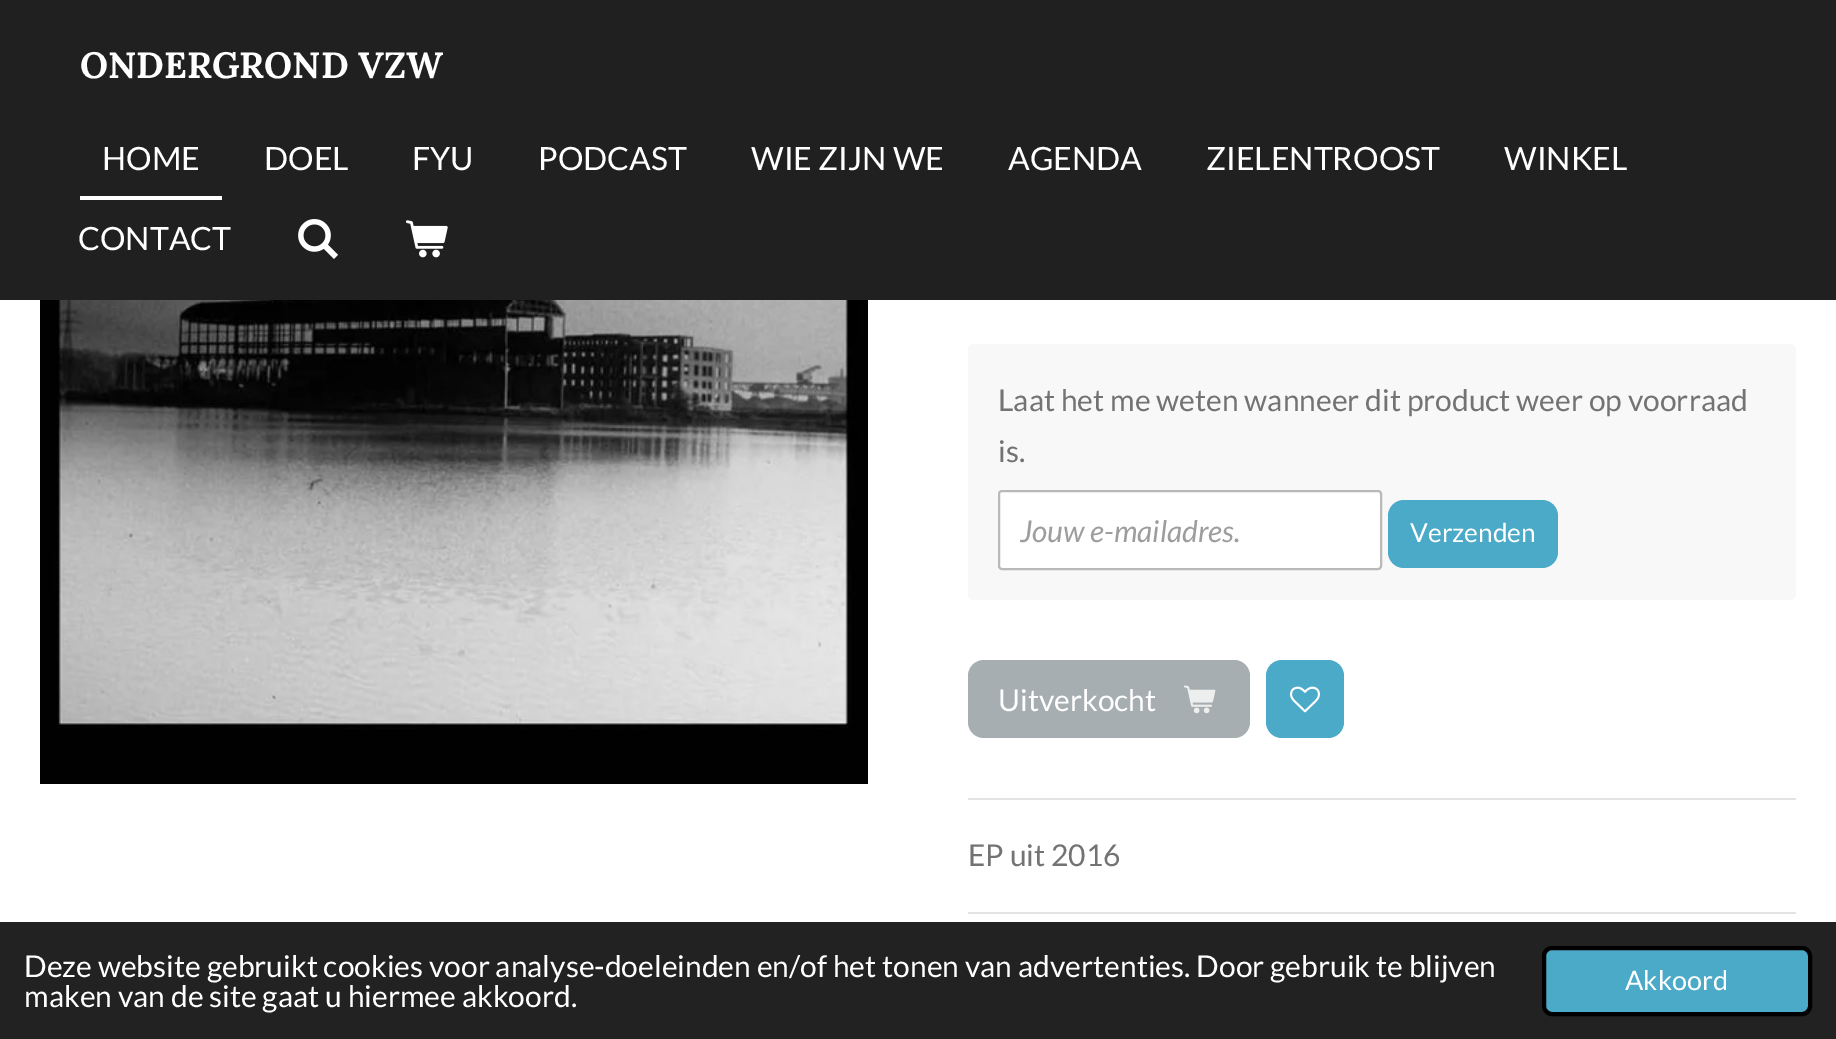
%!PS
<< /PageSize [1836 1039] >> setpagedevice
/f/fill load def
/s/stroke load def
/q/gsave load def
/Q_/grestore load def
/w/setlinewidth load def
/C { dup -16 bitshift 255 div exch dup -8 bitshift 255 and 255 div exch 255 and 255 div setrgbcolor } def
/F { [ exch dup neg 0 0 3 -1 roll 0 0 ] selectfont } def
/T { moveto show } def
/R { rectfill } def
/Q { 5 dict begin { /r /h /w /y /x } { exch def } forall
  x r add y moveto x w add y 2 copy h add r arct x w add y h add x 1 index r arct
  x y h add x y r arct x y 2 copy exch w add exch r arct closepath end } def
/I { 5 dict begin { /h /w /y /x /name } { exch def } forall
  gsave x y translate w h scale
  w h 8 [w 0 0 h 0 0] name (r) file false 3 colorimage grestore end } def
0 1039 translate 1 -1 scale
4 setmiterlimit
16#FFFFFF C
0 0 1836 1039 R
16#202020 C
0 0 1836 300 R
/Lora-Bold 36.5 F
16#FFFFFF C
(ONDERGROND VZW) 80 78 T
80 196 142 4 R
/Lato-Regular 32 F
(HOME) 102 170 T
(DOEL) 264 170 T
(FYU) 412 170 T
(PODCAST) 538 170 T
(WIE ZIJN WE) 751 170 T
(AGENDA) 1008 170 T
(ZIELENTROOST) 1206 170 T
(WINKEL) 1504 170 T
(CONTACT) 78 250 T
(1.rgb) 298 219 40 40 I
(2.rgb) 406 220 42 38 I
(3.rgb) 40 300 828 484 I
16#F8F8F8 C
968 344 828 256 6 Q f
/Lato-Regular 30 F
16#737373 C
(Laat het me weten wanneer dit product weer op voorraad) 998 411 T
(is.) 998 462 T
16#FFFFFF C
999 491 382 78 3 Q q f Q_
16#B9B9B9 C
2 w
s
/Lato-Italic 30 F
16#9D9D9D C
(Jouw e-mailadres.) 1020 542 T
16#4CAAC9 C
1388 500 170 68 16 Q f
/Lato-Regular 26.25 F
16#FFFFFF C
(Verzenden) 1410 542 T
16#A7AEB1 C
968 660 282 78 16 Q f
/Lato-Regular 30 F
16#FFFFFF C
(Uitverkocht) 998 711 T
(4.rgb) 1184 685 32 29 I
16#4CAAC9 C
1266 660 78 78 16 Q f
(5.rgb) 1290 686 30 27 I
16#E3E3E3 C
968 798 828 2 R
16#737373 C
(EP uit 2016) 968 866 T
16#E3E3E3 C
968 912 828 2 R
16#222222 C
0 922 1836 117 R
16#FFFFFF C
(Deze website gebruikt cookies voor analyse-doeleinden en/of het tonen van advertenties. Door gebruik te blijven) 24 977 T
(maken van de site gaat u hiermee akkoord.) 24 1007 T
16#4CAAC9 C
1544 948 266 66 8 Q q f Q_
16#000000 C
4 w
s
/Lato-Regular 27 F
16#FFFFFF C
(Akkoord) 1625 990 T
showpage
